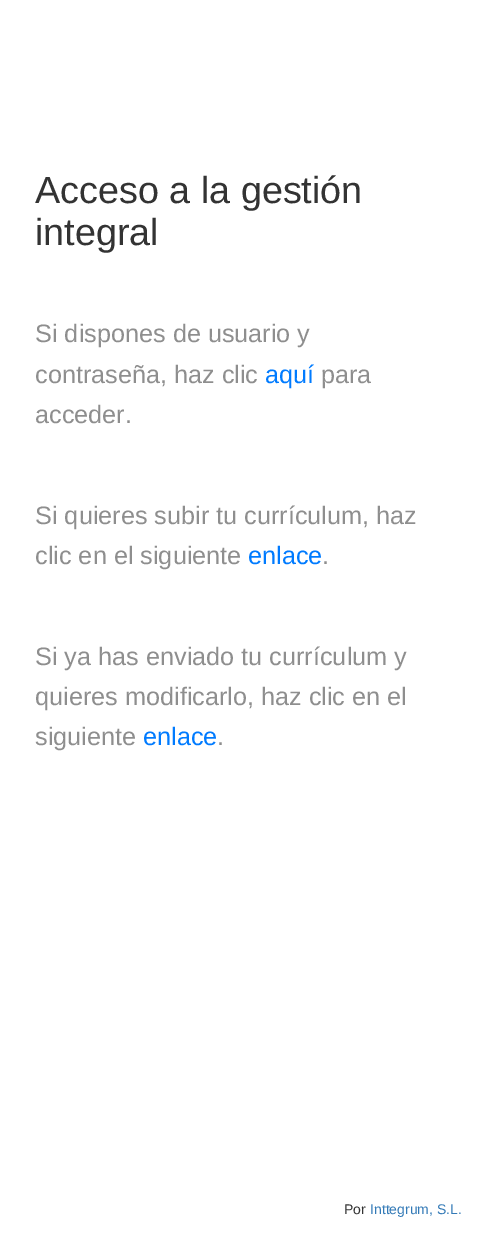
%!PS
<< /PageSize [477 1249] >> setpagedevice
/C { dup -16 bitshift 255 div exch dup -8 bitshift 255 and 255 div exch 255 and 255 div setrgbcolor } def
/F { [ exch dup neg 0 0 3 -1 roll 0 0 ] selectfont } def
/T { moveto show } def
/R { rectfill } def
0 1249 translate 1 -1 scale
4 setmiterlimit
16#FFFFFF C
0 0 477 1249 R
/LiberationSans-Regular 37.75 F
16#333333 C
(Acceso a la gestión) 35 203 T
(integral) 35 245 T
/LiberationSans-Regular 25.25 F
16#8E8E8E C
(Si dispones de usuario y) 35 342 T
(contraseña, haz clic) 35 383 T
16#007BFF C
(aquí) 265 383 T
16#8E8E8E C
(para) 321 383 T
(acceder.) 35 423 T
(Si quieres subir tu currículum, haz) 35 524 T
(clic en el siguiente) 35 564 T
16#007BFF C
(enlace) 248 564 T
16#8E8E8E C
(.) 322 564 T
(Si ya has enviado tu currículum y) 35 665 T
(quieres modificarlo, haz clic en el) 35 705 T
(siguiente) 35 745 T
16#007BFF C
(enlace) 143 745 T
16#8E8E8E C
(.) 217 745 T
/LiberationSans-Regular 14 F
16#333333 C
(Por) 344 1214 T
16#337AB7 C
(Inttegrum, S.L.) 370 1214 T
showpage
